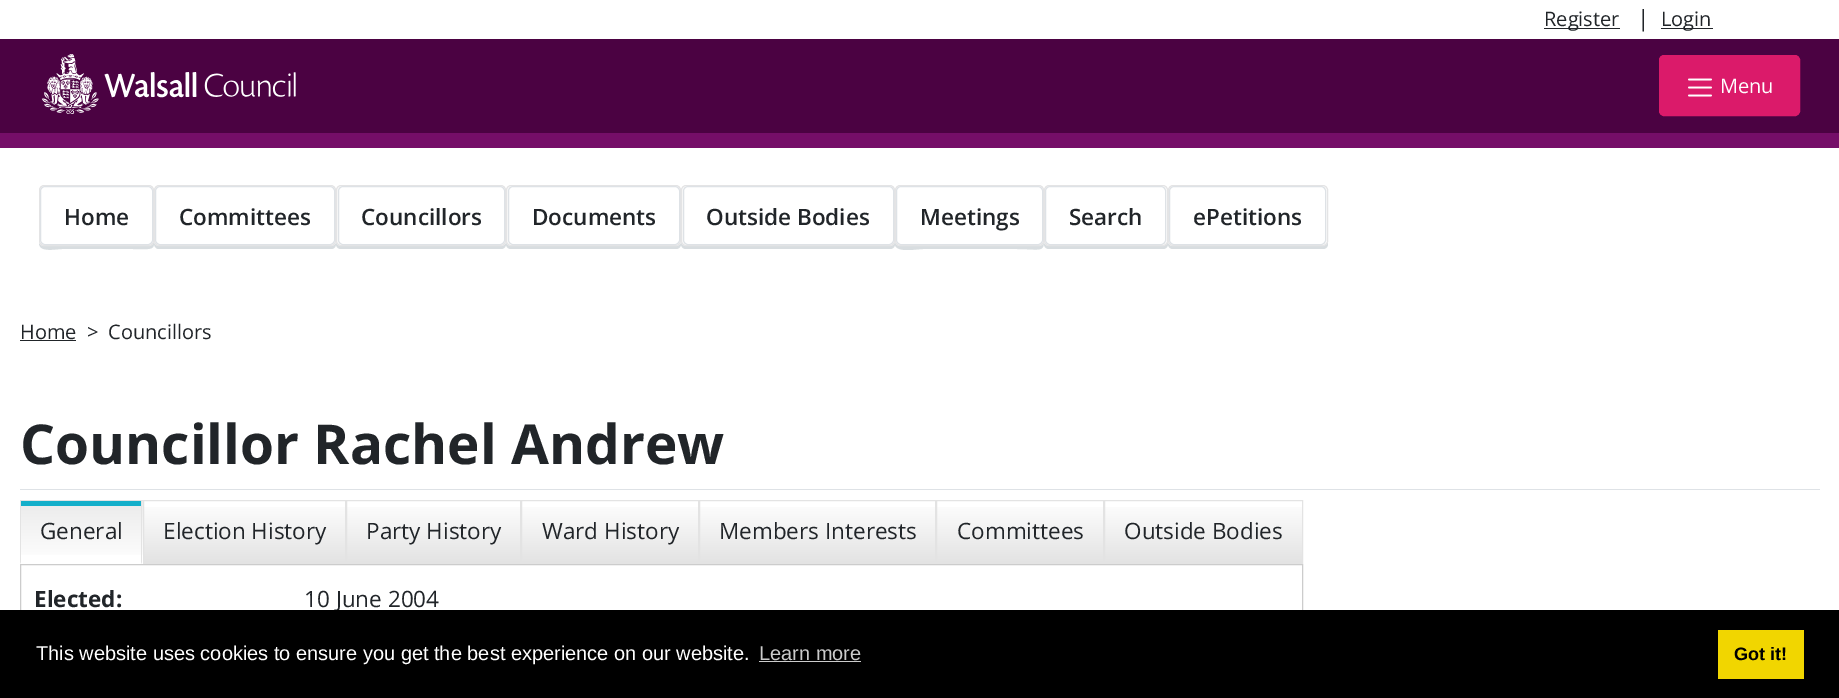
%!PS
<< /PageSize [1839 698] /PageUsesTransparency true >> setpagedevice
/m/moveto load def
/l/rlineto load def
/c/rcurveto load def
/z/closepath load def
/f/fill load def
/s/stroke load def
/q/gsave load def
/Q_/grestore load def
/C { dup -16 bitshift 255 div exch dup -8 bitshift 255 and 255 div exch 255 and 255 div setrgbcolor } def
/F { [ exch dup neg 0 0 3 -1 roll 0 0 ] selectfont } def
/T { moveto show } def
/R { rectfill } def
/A { dup .setfillconstantalpha .setstrokeconstantalpha } def
/Q { 5 dict begin { /r /h /w /y /x } { exch def } forall
  x r add y moveto x w add y 2 copy h add r arct x w add y h add x 1 index r arct
  x y h add x y r arct x y 2 copy exch w add exch r arct closepath end } def
/I { 5 dict begin { /h /w /y /x /name } { exch def } forall
  gsave x y translate w h scale
  w h 8 [w 0 0 h 0 0] name (r) file false 3 colorimage grestore end } def
0 .pushpdf14devicefilter
0 698 translate 1 -1 scale
4 setmiterlimit
16#FFFFFF C
0 0 1839 698 R
16#212529 C
1544 28 76 1 R
/OpenSans-Regular 20 F
(Register) 1544 26 T
/OpenSans-Regular 22.5 F
(|) 1637 26 T
1661 28 52 1 R
/OpenSans-Regular 20 F
(Login) 1661 26 T
16#4B0242 C
0 39 1839 94 R
16#750E68 C
0 133 1839 15 R
(1.rgb) 41 54 255 60 I
16#DB1A6A C
1659.5 55.5 140 60 4.5 Q q f Q_
s
(2.rgb) 1688 78 24 19 I
16#FFFFFF C
(Menu) 1720 93 T
16#D8DDE0 C
39 243 m 0 10 17 6 23 6 c 70 0 l 26 0 22 3 22 -22 c 0 -36 l 0 51 l -2 3 l -2 1 l -106 0 l -2 0 -4 -1 -5 -3 c z f
0.7 A
16#FAF9F9 C
39.5 185.5 114 60 4.5 Q f
1 A
16#E4E4E5 C
39.5 185.5 114 60 4.5 Q s
16#FFFFFF C
40.5 186.5 112 58 4.5 Q q f Q_
16#DEE2E6 C
s
/OpenSans-SemiBold 22.5 F
16#212529 C
(Home) 64 225 T
16#D8DDE0 C
154 243 m 0 3 1 5 4 6 c 173 0 l 4 0 5 -3 5 -6 c -1 2 -3 3 -5 3 c -172 0 l -2 0 -4 -1 -5 -3 c z f
0.7 A
16#FAF9F9 C
154.5 185.5 181 60 4.5 Q f
1 A
16#E4E4E5 C
154.5 185.5 181 60 4.5 Q s
16#FFFFFF C
155.5 186.5 179 58 4.5 Q q f Q_
16#DEE2E6 C
s
16#212529 C
(Committees) 179 225 T
16#D8DDE0 C
336 191 m 0 53 l 0 3 2 5 5 5 c 160 0 l 3 0 5 -2 5 -5 c 0 -1 l -1 2 -3 3 -5 3 c -160 0 l -3 0 -5 -2 -5 -5 c z f
0.7 A
16#FAF9F9 C
336.5 185.5 169 60 4.5 Q f
1 A
16#E4E4E5 C
336.5 185.5 169 60 4.5 Q s
16#FFFFFF C
338.5 186.5 166 58 4.5 Q q f Q_
16#DEE2E6 C
s
16#212529 C
(Councillors) 361 225 T
16#D8DDE0 C
506 191 m 0 53 l 0 3 2 5 5 5 c 165 0 l 3 0 5 -2 5 -5 c 0 -1 l -1 2 -3 3 -5 3 c -165 0 l -3 0 -5 -2 -5 -5 c z f
0.7 A
16#FAF9F9 C
506.5 185.5 174 60 4.5 Q f
1 A
16#E4E4E5 C
506.5 185.5 174 60 4.5 Q s
16#FFFFFF C
508.5 186.5 171 58 4.5 Q q f Q_
16#DEE2E6 C
s
16#212529 C
(Documents) 532 225 T
16#D8DDE0 C
681 191 m 0 53 l 0 3 2 5 5 5 c 204 0 l 3 0 5 -2 5 -5 c 0 -3 l 0 3 -2 5 -5 5 c -204 0 l -3 0 -5 -2 -5 -5 c z f
0.7 A
16#FAF9F9 C
681.5 185.5 213 60 4.5 Q f
1 A
16#E4E4E5 C
681.5 185.5 213 60 4.5 Q s
16#FFFFFF C
683.5 186.5 210 58 4.5 Q q f Q_
16#DEE2E6 C
s
16#212529 C
(Outside Bodies) 706 225 T
16#D8DDE0 C
895 241 m 0 4 l 2 8 22 4 28 4 c 93 0 l 31 0 28 6 28 -22 c 0 -36 l 0 50 l 0 3 -2 5 -5 5 c -139 0 l -3 0 -5 -2 -5 -5 c z f
0.7 A
16#FAF9F9 C
895.5 185.5 148 60 4.5 Q f
1 A
16#E4E4E5 C
895.5 185.5 148 60 4.5 Q s
16#FFFFFF C
896.5 186.5 146 58 4.5 Q q f Q_
16#DEE2E6 C
s
16#212529 C
(Meetings) 920 225 T
16#D8DDE0 C
1044 243 m 0 1 l 0 3 2 5 5 5 c 114 0 l 3 0 5 -2 5 -5 c 0 -51 l 0 -2 l 0 50 l 0 3 -3 5 -6 5 c -113 0 l -2 0 -4 -1 -5 -3 c z f
0.7 A
16#FAF9F9 C
1044.5 185.5 123 60 4.5 Q f
1 A
16#E4E4E5 C
1044.5 185.5 123 60 4.5 Q s
16#FFFFFF C
1045.5 186.5 120 58 4.5 Q q f Q_
16#DEE2E6 C
s
16#212529 C
(Search) 1069 225 T
16#D8DDE0 C
1168 243 m 0 1 l 0 3 2 5 5 5 c 150 0 l 3 0 5 -2 5 -5 c 0 -51 l 0 -2 l 0 50 l 0 3 -3 5 -6 5 c -150 0 l -1 0 -3 -1 -4 -3 c z f
0.7 A
16#FAF9F9 C
1168.5 185.5 159 60 4.5 Q f
1 A
16#E4E4E5 C
1168.5 185.5 159 60 4.5 Q s
16#FFFFFF C
1169.5 186.5 156 58 4.5 Q q f Q_
16#DEE2E6 C
s
16#212529 C
(ePetitions) 1193 225 T
/OpenSans-Regular 20 F
(Home) 20 339 T
20 340 56 1 R
(>) 87 339 T
(Councillors) 108 339 T
16#DEE2E6 C
20 489 1800 1 R
/OpenSans-Bold 55 F
16#212529 C
(Councillor Rachel Andrew) 20 464 T
q 20 501 m 123 0 l 0 54 l -123 0 l z clip newpath
<< /ShadingType 2 /ColorSpace /DeviceRGB /Coords [81 501 81 563] /Extend [true true] /Function << /FunctionType 2 /Domain [0 1] /C0 [.922 .922 .922] /C1 [1 1 1] /N 1 >> >> shfill Q_
16#E3E3E3 C
20 500 123 1 R
142 500 m 0 64 l -1 -2 l 0 -61 l z f
20 564 m 0 -64 l 1 1 l 0 61 l z f
16#14AFCA C
21 501 120 5 R
/OpenSans-Regular 22.5 F
16#212529 C
(General) 40 539 T
q 144 507 m 201 0 l 0 56 l -201 0 l z clip newpath
<< /ShadingType 2 /ColorSpace /DeviceRGB /Coords [244 501 244 563] /Extend [true true] /Function << /FunctionType 2 /Domain [0 1] /C0 [1 1 1] /C1 [.89 .89 .89] /N 1 >> >> shfill Q_
16#E3E3E3 C
143.5 500.5 202 63 rectstroke
16#212529 C
(Election History) 163 539 T
q 347 507 m 173 0 l 0 56 l -173 0 l z clip newpath
<< /ShadingType 2 /ColorSpace /DeviceRGB /Coords [434 501 434 563] /Extend [true true] /Function << /FunctionType 2 /Domain [0 1] /C0 [1 1 1] /C1 [.89 .89 .89] /N 1 >> >> shfill Q_
16#E3E3E3 C
346.5 500.5 174 63 rectstroke
16#212529 C
(Party History) 366 539 T
q 522 507 m 176 0 l 0 56 l -176 0 l z clip newpath
<< /ShadingType 2 /ColorSpace /DeviceRGB /Coords [610 501 610 563] /Extend [true true] /Function << /FunctionType 2 /Domain [0 1] /C0 [1 1 1] /C1 [.89 .89 .89] /N 1 >> >> shfill Q_
16#E3E3E3 C
521.5 500.5 177 63 rectstroke
16#212529 C
(Ward History) 542 539 T
q 700 507 m 235 0 l 0 56 l -235 0 l z clip newpath
<< /ShadingType 2 /ColorSpace /DeviceRGB /Coords [818 501 818 563] /Extend [true true] /Function << /FunctionType 2 /Domain [0 1] /C0 [1 1 1] /C1 [.89 .89 .89] /N 1 >> >> shfill Q_
16#E3E3E3 C
699.5 500.5 236 63 rectstroke
16#212529 C
(Members Interests) 719 539 T
q 937 507 m 166 0 l 0 56 l -166 0 l z clip newpath
<< /ShadingType 2 /ColorSpace /DeviceRGB /Coords [1020 501 1020 563] /Extend [true true] /Function << /FunctionType 2 /Domain [0 1] /C0 [1 1 1] /C1 [.89 .89 .89] /N 1 >> >> shfill Q_
16#E3E3E3 C
936.5 500.5 167 63 rectstroke
16#212529 C
(Committees) 957 539 T
q 1105 507 m 197 0 l 0 56 l -197 0 l z clip newpath
<< /ShadingType 2 /ColorSpace /DeviceRGB /Coords [1203 501 1203 563] /Extend [true true] /Function << /FunctionType 2 /Domain [0 1] /C0 [1 1 1] /C1 [.89 .89 .89] /N 1 >> >> shfill Q_
16#E3E3E3 C
1104.5 500.5 198 63 rectstroke
16#212529 C
(Outside Bodies) 1124 539 T
16#CCCCCC C
20.5 564.5 1282 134 rectstroke
/OpenSans-Bold 22.5 F
16#212529 C
(Elected:) 34 607 T
/OpenSans-Regular 22.5 F
(10 June 2004) 304 607 T
16#000000 C
0 610 1839 88 R
/LiberationSans-Regular 20 F
16#FFFFFF C
(This website uses cookies to ensure you get the best experience on our website.) 36 660 T
16#CCCCCC C
(Learn more) 759 660 T
759 661 102 1 R
16#F1D600 C
1718 630 86 49 R
/LiberationSans-Bold 18 F
16#000000 C
(Got it!) 1734 660 T
.poppdf14devicefilter showpage
